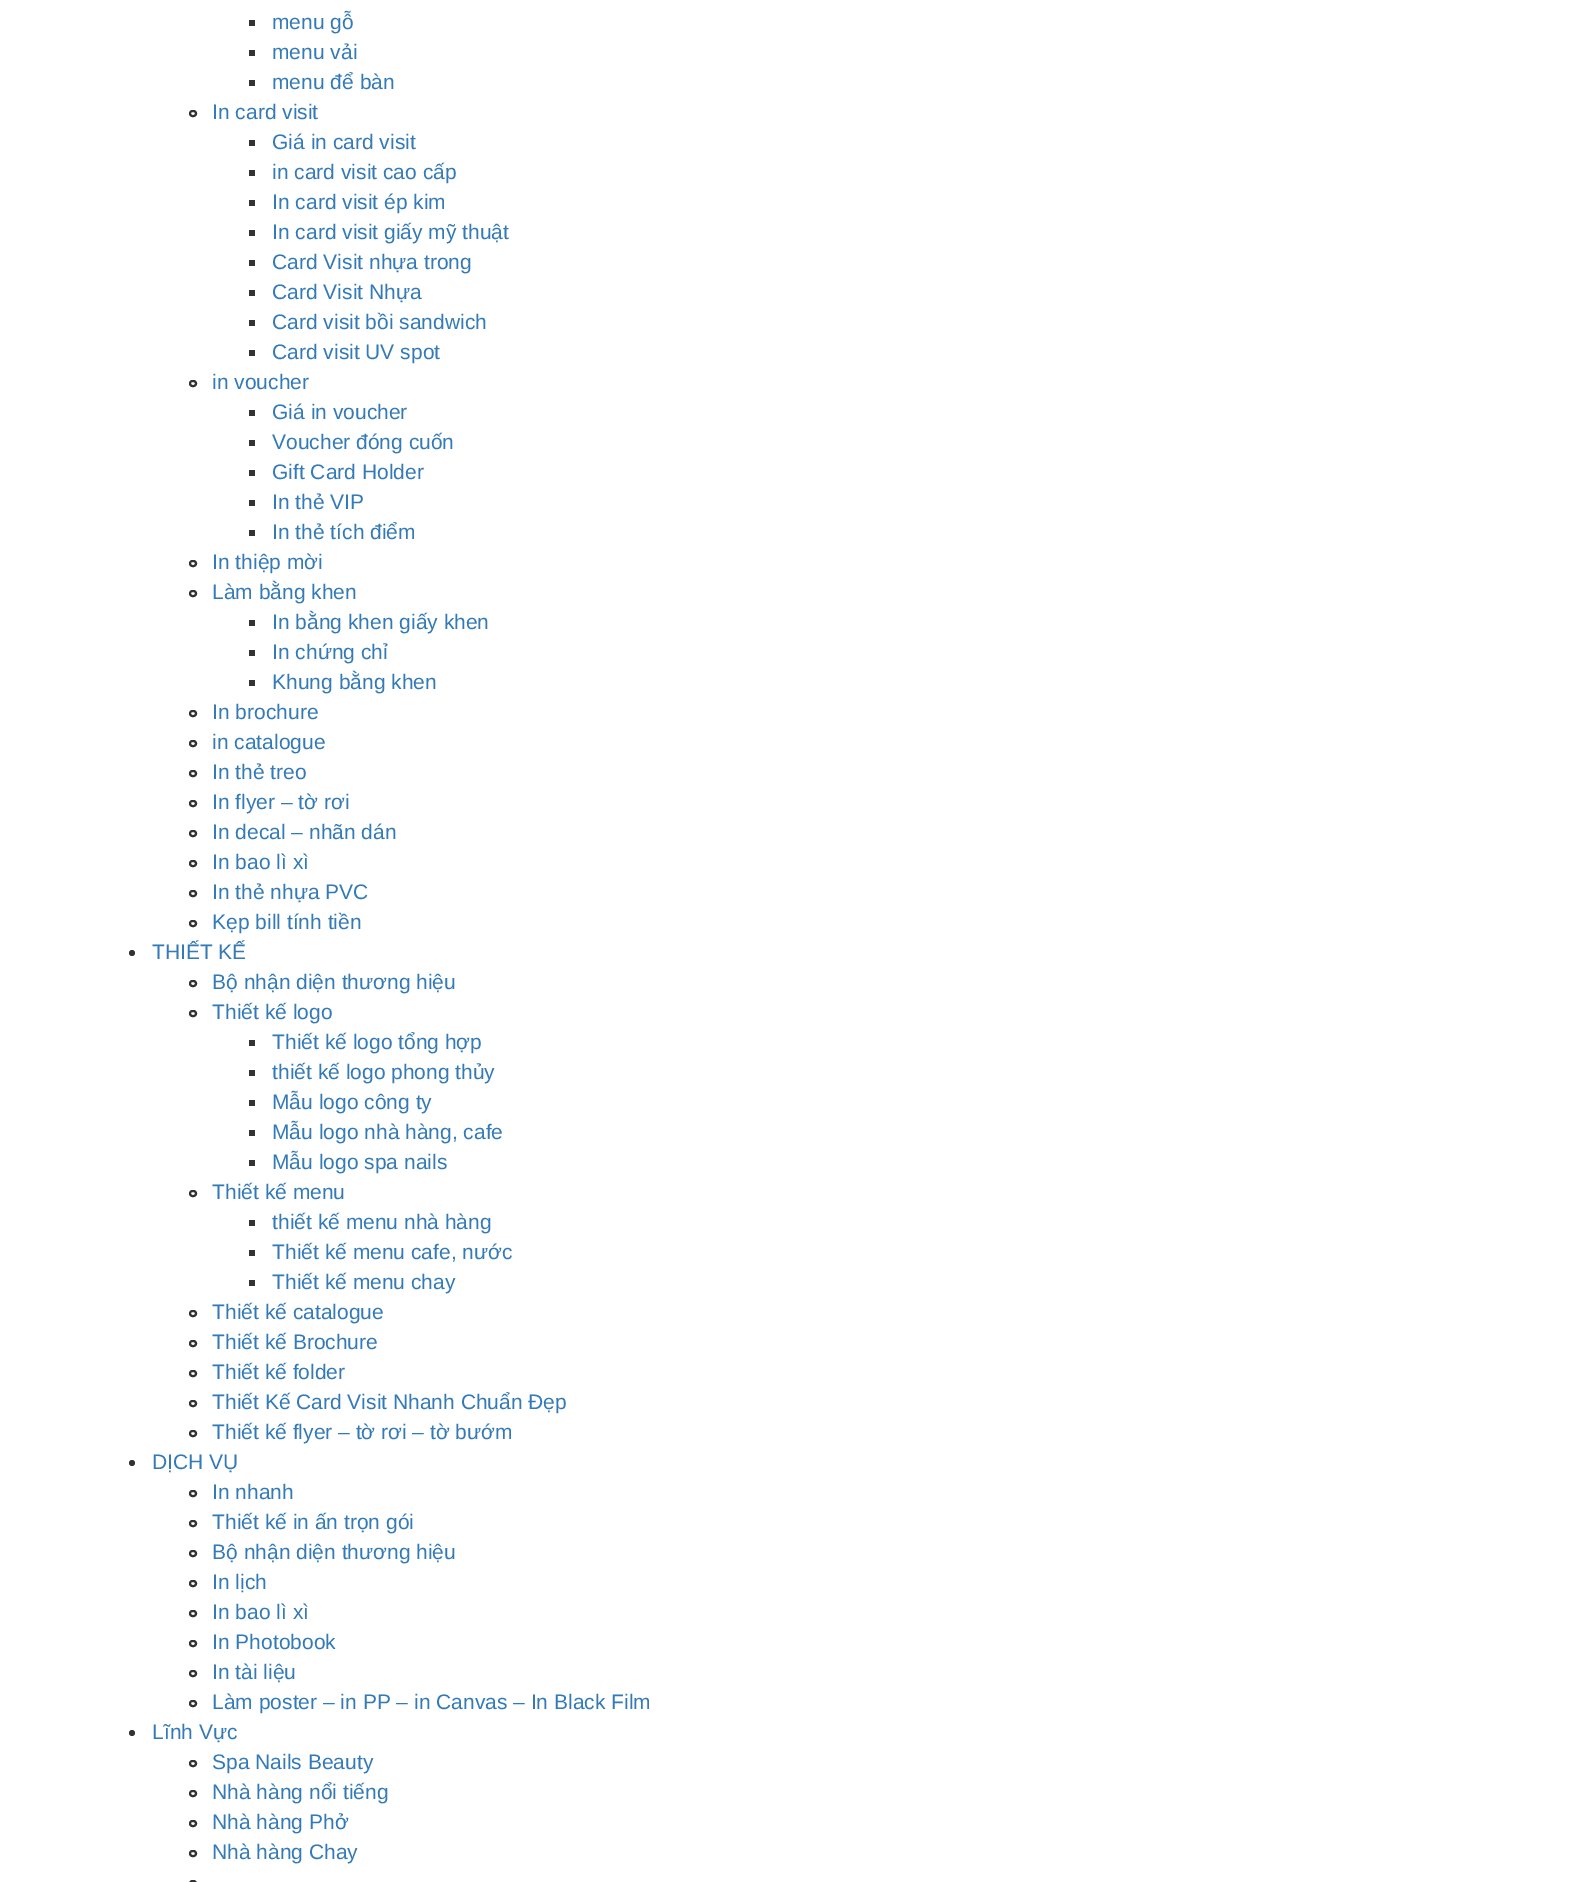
%!PS
<< /PageSize [1592 1882] >> setpagedevice
/f/fill load def
/s/stroke load def
/w/setlinewidth load def
/C { dup -16 bitshift 255 div exch dup -8 bitshift 255 and 255 div exch 255 and 255 div setrgbcolor } def
/F { [ exch dup neg 0 0 3 -1 roll 0 0 ] selectfont } def
/T { moveto show } def
/R { rectfill } def
/O { newpath 0 360 arc closepath } def
/Q { 5 dict begin { /r /h /w /y /x } { exch def } forall
  x r add y moveto x w add y 2 copy h add r arct x w add y h add x 1 index r arct
  x y h add x y r arct x y 2 copy exch w add exch r arct closepath end } def
0 1882 translate 1 -1 scale
4 setmiterlimit
16#FFFFFF C
0 0 1592 1882 R
16#333333 C
249 20 6 6 R
/LiberationSans-Regular 21 F
16#337AB7 C
(menu gỗ) 272 29 T
16#333333 C
249 50 6 6 R
16#337AB7 C
(menu vải) 272 59 T
16#333333 C
249 80 6 6 R
16#337AB7 C
(menu để bàn) 272 89 T
16#333333 C
2 w
190 111 6 5 2.5 Q s
16#337AB7 C
(In card visit) 212 119 T
16#333333 C
249 140 6 6 R
16#337AB7 C
(Giá in card visit) 272 149 T
16#333333 C
249 170 6 6 R
16#337AB7 C
(in card visit cao cấp) 272 179 T
16#333333 C
249 200 6 6 R
16#337AB7 C
(In card visit ép kim) 272 209 T
16#333333 C
249 230 6 6 R
16#337AB7 C
(In card visit giấy mỹ thuật) 272 239 T
16#333333 C
249 260 6 6 R
16#337AB7 C
(Card Visit nhựa trong) 272 269 T
16#333333 C
249 290 6 6 R
16#337AB7 C
(Card Visit Nhựa) 272 299 T
16#333333 C
249 320 6 6 R
16#337AB7 C
(Card visit bồi sandwich) 272 329 T
16#333333 C
249 350 6 6 R
16#337AB7 C
(Card visit UV spot) 272 359 T
16#333333 C
190 381 6 5 2.5 Q s
16#337AB7 C
(in voucher) 212 389 T
16#333333 C
249 410 6 6 R
16#337AB7 C
(Giá in voucher) 272 419 T
16#333333 C
249 440 6 6 R
16#337AB7 C
(Voucher đóng cuốn) 272 449 T
16#333333 C
249 470 6 6 R
16#337AB7 C
(Gift Card Holder) 272 479 T
16#333333 C
249 500 6 6 R
16#337AB7 C
(In thẻ VIP) 272 509 T
16#333333 C
249 530 6 6 R
16#337AB7 C
(In thẻ tích điểm) 272 539 T
16#333333 C
190 561 6 5 2.5 Q s
16#337AB7 C
(In thiệp mời) 212 569 T
16#333333 C
190 591 6 5 2.5 Q s
16#337AB7 C
(Làm bằng khen) 212 599 T
16#333333 C
249 620 6 6 R
16#337AB7 C
(In bằng khen giấy khen) 272 629 T
16#333333 C
249 650 6 6 R
16#337AB7 C
(In chứng chỉ) 272 659 T
16#333333 C
249 680 6 6 R
16#337AB7 C
(Khung bằng khen) 272 689 T
16#333333 C
190 711 6 5 2.5 Q s
16#337AB7 C
(In brochure) 212 719 T
16#333333 C
190 741 6 5 2.5 Q s
16#337AB7 C
(in catalogue) 212 749 T
16#333333 C
190 771 6 5 2.5 Q s
16#337AB7 C
(In thẻ treo) 212 779 T
16#333333 C
190 801 6 5 2.5 Q s
16#337AB7 C
(In flyer – tờ rơi) 212 809 T
16#333333 C
190 831 6 5 2.5 Q s
16#337AB7 C
(In decal – nhãn dán) 212 839 T
16#333333 C
190 861 6 5 2.5 Q s
16#337AB7 C
(In bao lì xì) 212 869 T
16#333333 C
190 891 6 5 2.5 Q s
16#337AB7 C
(In thẻ nhựa PVC) 212 899 T
16#333333 C
190 921 6 5 2.5 Q s
16#337AB7 C
(Kẹp bill tính tiền) 212 929 T
16#333333 C
132 953 3 O f
16#337AB7 C
(THIẾT KẾ) 152 959 T
16#333333 C
190 981 6 5 2.5 Q s
16#337AB7 C
(Bộ nhận diện thương hiệu) 212 989 T
16#333333 C
190 1011 6 5 2.5 Q s
16#337AB7 C
(Thiết kế logo) 212 1019 T
16#333333 C
249 1040 6 6 R
16#337AB7 C
(Thiết kế logo tổng hợp) 272 1049 T
16#333333 C
249 1070 6 6 R
16#337AB7 C
(thiết kế logo phong thủy) 272 1079 T
16#333333 C
249 1100 6 6 R
16#337AB7 C
(Mẫu logo công ty) 272 1109 T
16#333333 C
249 1130 6 6 R
16#337AB7 C
(Mẫu logo nhà hàng, cafe) 272 1139 T
16#333333 C
249 1160 6 6 R
16#337AB7 C
(Mẫu logo spa nails) 272 1169 T
16#333333 C
190 1191 6 5 2.5 Q s
16#337AB7 C
(Thiết kế menu) 212 1199 T
16#333333 C
249 1220 6 6 R
16#337AB7 C
(thiết kế menu nhà hàng) 272 1229 T
16#333333 C
249 1250 6 6 R
16#337AB7 C
(Thiết kế menu cafe, nước) 272 1259 T
16#333333 C
249 1280 6 6 R
16#337AB7 C
(Thiết kế menu chay) 272 1289 T
16#333333 C
190 1311 6 5 2.5 Q s
16#337AB7 C
(Thiết kế catalogue) 212 1319 T
16#333333 C
190 1341 6 5 2.5 Q s
16#337AB7 C
(Thiết kế Brochure) 212 1349 T
16#333333 C
190 1371 6 5 2.5 Q s
16#337AB7 C
(Thiết kế folder) 212 1379 T
16#333333 C
190 1401 6 5 2.5 Q s
16#337AB7 C
(Thiết Kế Card Visit Nhanh Chuẩn Đẹp) 212 1409 T
16#333333 C
190 1431 6 5 2.5 Q s
16#337AB7 C
(Thiết kế flyer – tờ rơi – tờ bướm) 212 1439 T
16#333333 C
132 1463 3 O f
16#337AB7 C
(DỊCH VỤ) 152 1469 T
16#333333 C
190 1491 6 5 2.5 Q s
16#337AB7 C
(In nhanh) 212 1499 T
16#333333 C
190 1521 6 5 2.5 Q s
16#337AB7 C
(Thiết kế in ấn trọn gói) 212 1529 T
16#333333 C
190 1551 6 5 2.5 Q s
16#337AB7 C
(Bộ nhận diện thương hiệu) 212 1559 T
16#333333 C
190 1581 6 5 2.5 Q s
16#337AB7 C
(In lịch) 212 1589 T
16#333333 C
190 1611 6 5 2.5 Q s
16#337AB7 C
(In bao lì xì) 212 1619 T
16#333333 C
190 1641 6 5 2.5 Q s
16#337AB7 C
(In Photobook) 212 1649 T
16#333333 C
190 1671 6 5 2.5 Q s
16#337AB7 C
(In tài liệu) 212 1679 T
16#333333 C
190 1701 6 5 2.5 Q s
16#337AB7 C
(Làm poster – in PP – in Canvas – In Black Film) 212 1709 T
16#333333 C
132 1733 3 O f
16#337AB7 C
(Lĩnh Vực) 152 1739 T
16#333333 C
190 1761 6 5 2.5 Q s
16#337AB7 C
(Spa Nails Beauty) 212 1769 T
16#333333 C
190 1791 6 5 2.5 Q s
16#337AB7 C
(Nhà hàng nổi tiếng) 212 1799 T
16#333333 C
190 1821 6 5 2.5 Q s
16#337AB7 C
(Nhà hàng Phở) 212 1829 T
16#333333 C
190 1851 6 5 2.5 Q s
16#337AB7 C
(Nhà hàng Chay) 212 1859 T
16#333333 C
190 1881 6 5 2.5 Q s
showpage
